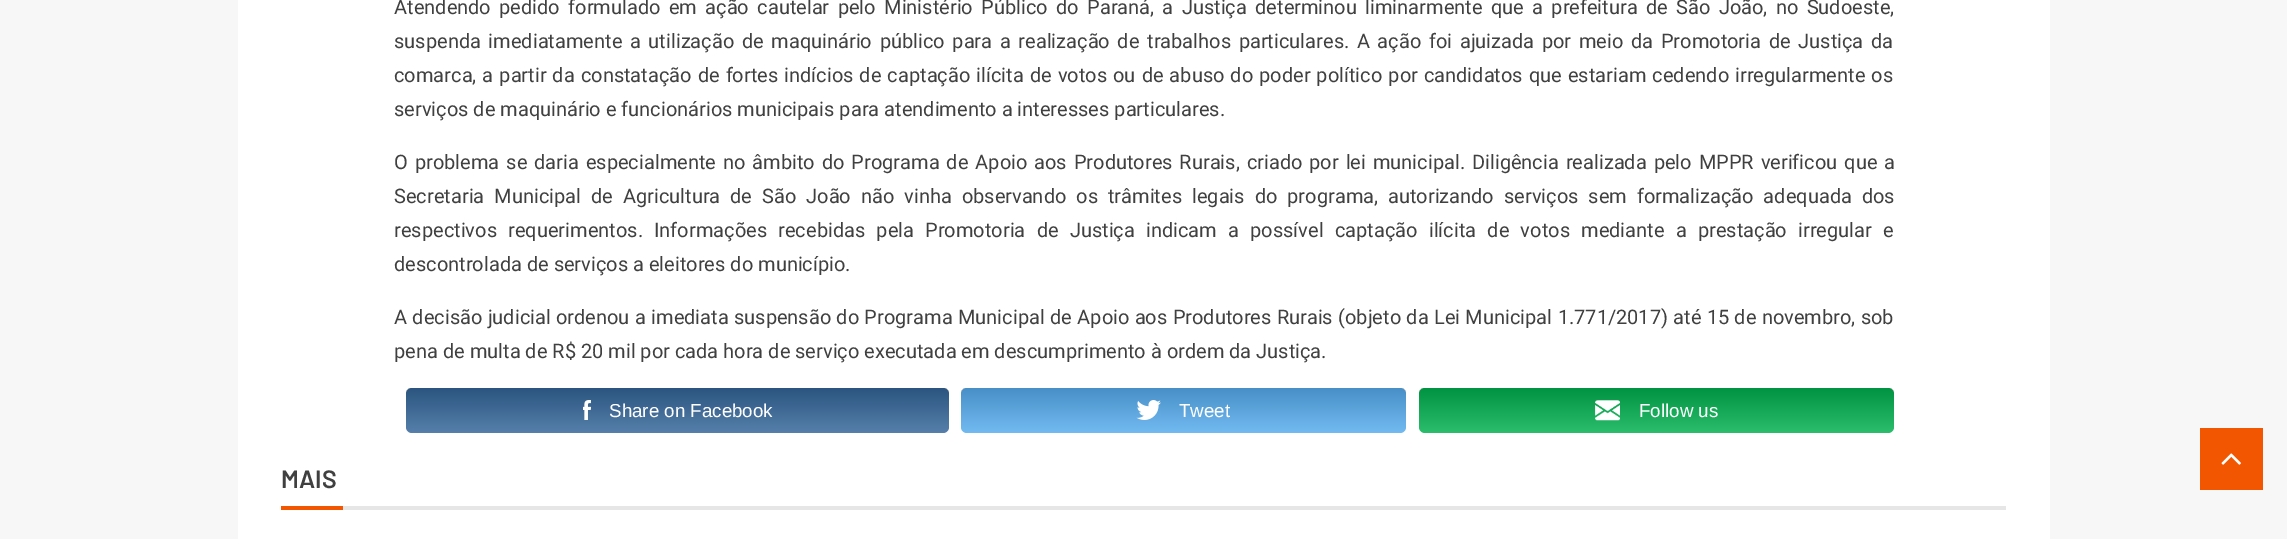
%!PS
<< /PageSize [2287 539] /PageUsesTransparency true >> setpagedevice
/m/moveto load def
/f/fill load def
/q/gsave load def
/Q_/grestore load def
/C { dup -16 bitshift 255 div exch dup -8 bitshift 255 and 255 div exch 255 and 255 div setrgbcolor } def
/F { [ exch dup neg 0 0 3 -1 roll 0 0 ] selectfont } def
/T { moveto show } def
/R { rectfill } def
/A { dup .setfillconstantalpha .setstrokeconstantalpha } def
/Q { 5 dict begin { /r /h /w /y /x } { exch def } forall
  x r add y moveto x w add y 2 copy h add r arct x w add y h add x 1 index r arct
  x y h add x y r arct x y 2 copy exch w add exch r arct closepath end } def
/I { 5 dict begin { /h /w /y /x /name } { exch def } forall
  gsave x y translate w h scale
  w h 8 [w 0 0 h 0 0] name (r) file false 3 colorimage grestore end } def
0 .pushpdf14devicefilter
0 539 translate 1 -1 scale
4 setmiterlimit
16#F7F7F7 C
0 0 2287 539 R
16#FFFFFF C
238 0 1812 539 R
/Roboto-Regular 20 F
16#404040 C
394 14 m 3.4 0 32 (Atendendo pedido formulado em ação cautelar pelo Ministério Público do Paraná, a Justiça determinou liminarmente que a prefeitura de São João, no Sudoeste,) widthshow
394 48 m 2.7 0 32 (suspenda imediatamente a utilização de maquinário público para a realização de trabalhos particulares. A ação foi ajuizada por meio da Promotoria de Justiça da) widthshow
394 82 m 1.1 0 32 (comarca, a partir da constatação de fortes indícios de captação ilícita de votos ou de abuso do poder político por candidatos que estariam cedendo irregularmente os) widthshow
(serviços de maquinário e funcionários municipais para atendimento a interesses particulares.) 394 116 T
394 169 m 2 0 32 (O problema se daria especialmente no âmbito do Programa de Apoio aos Produtores Rurais, criado por lei municipal. Diligência realizada pelo MPPR verificou que a) widthshow
394 203 m 5 0 32 (Secretaria Municipal de Agricultura de São João não vinha observando os trâmites legais do programa, autorizando serviços sem formalização adequada dos) widthshow
394 237 m 6.25 0 32 (respectivos requerimentos. Informações recebidas pela Promotoria de Justiça indicam a possível captação ilícita de votos mediante a prestação irregular e) widthshow
(descontrolada de serviços a eleitores do município.) 394 271 T
394 324 m .4 0 32 (A decisão judicial ordenou a imediata suspensão do Programa Municipal de Apoio aos Produtores Rurais \(objeto da Lei Municipal 1.771/2017\) até 15 de novembro, sob) widthshow
(pena de multa de R$ 20 mil por cada hora de serviço executada em descumprimento à ordem da Justiça.) 394 358 T
16#336699 C
406 388 543 45 6 Q f
0.17 A
q 406 388 543 45 6 Q clip newpath
<< /ShadingType 2 /ColorSpace /DeviceRGB /Coords [678 388 678 433] /Extend [true true] /Function << /FunctionType 2 /Domain [0 1] /C0 [0 0 0] /C1 [1 1 1] /N 1 >> >> shfill Q_
1 A
(1.rgb) 583 400 8 20 I
/LiberationSans-Regular 18.75 F
16#FFFFFF C
(Share on Facebook) 609 417 T
16#55ACEE C
961 388 445 45 6 Q f
0.17 A
q 961 388 445 45 6 Q clip newpath
<< /ShadingType 2 /ColorSpace /DeviceRGB /Coords [1184 388 1184 433] /Extend [true true] /Function << /FunctionType 2 /Domain [0 1] /C0 [0 0 0] /C1 [1 1 1] /N 1 >> >> shfill Q_
1 A
(2.rgb) 1136 400 25 20 I
16#FFFFFF C
(Tweet) 1179 417 T
16#00B04E C
1419 388 475 45 6 Q f
0.17 A
q 1419 388 475 45 6 Q clip newpath
<< /ShadingType 2 /ColorSpace /DeviceRGB /Coords [1656 388 1656 433] /Extend [true true] /Function << /FunctionType 2 /Domain [0 1] /C0 [0 0 0] /C1 [1 1 1] /N 1 >> >> shfill Q_
1 A
(3.rgb) 1595 400 25 21 I
16#FFFFFF C
(Follow us) 1639 417 T
/Barlow-SemiBold 25 F
16#404040 C
(MAIS) 281 488 T
16#F25600 C
281 506 62 4 R
16#E6E6E6 C
343 506 1663 4 R
16#F25600 C
2200 428 63 62 R
(4.rgb) 2221 453 20 12 I
.poppdf14devicefilter showpage
